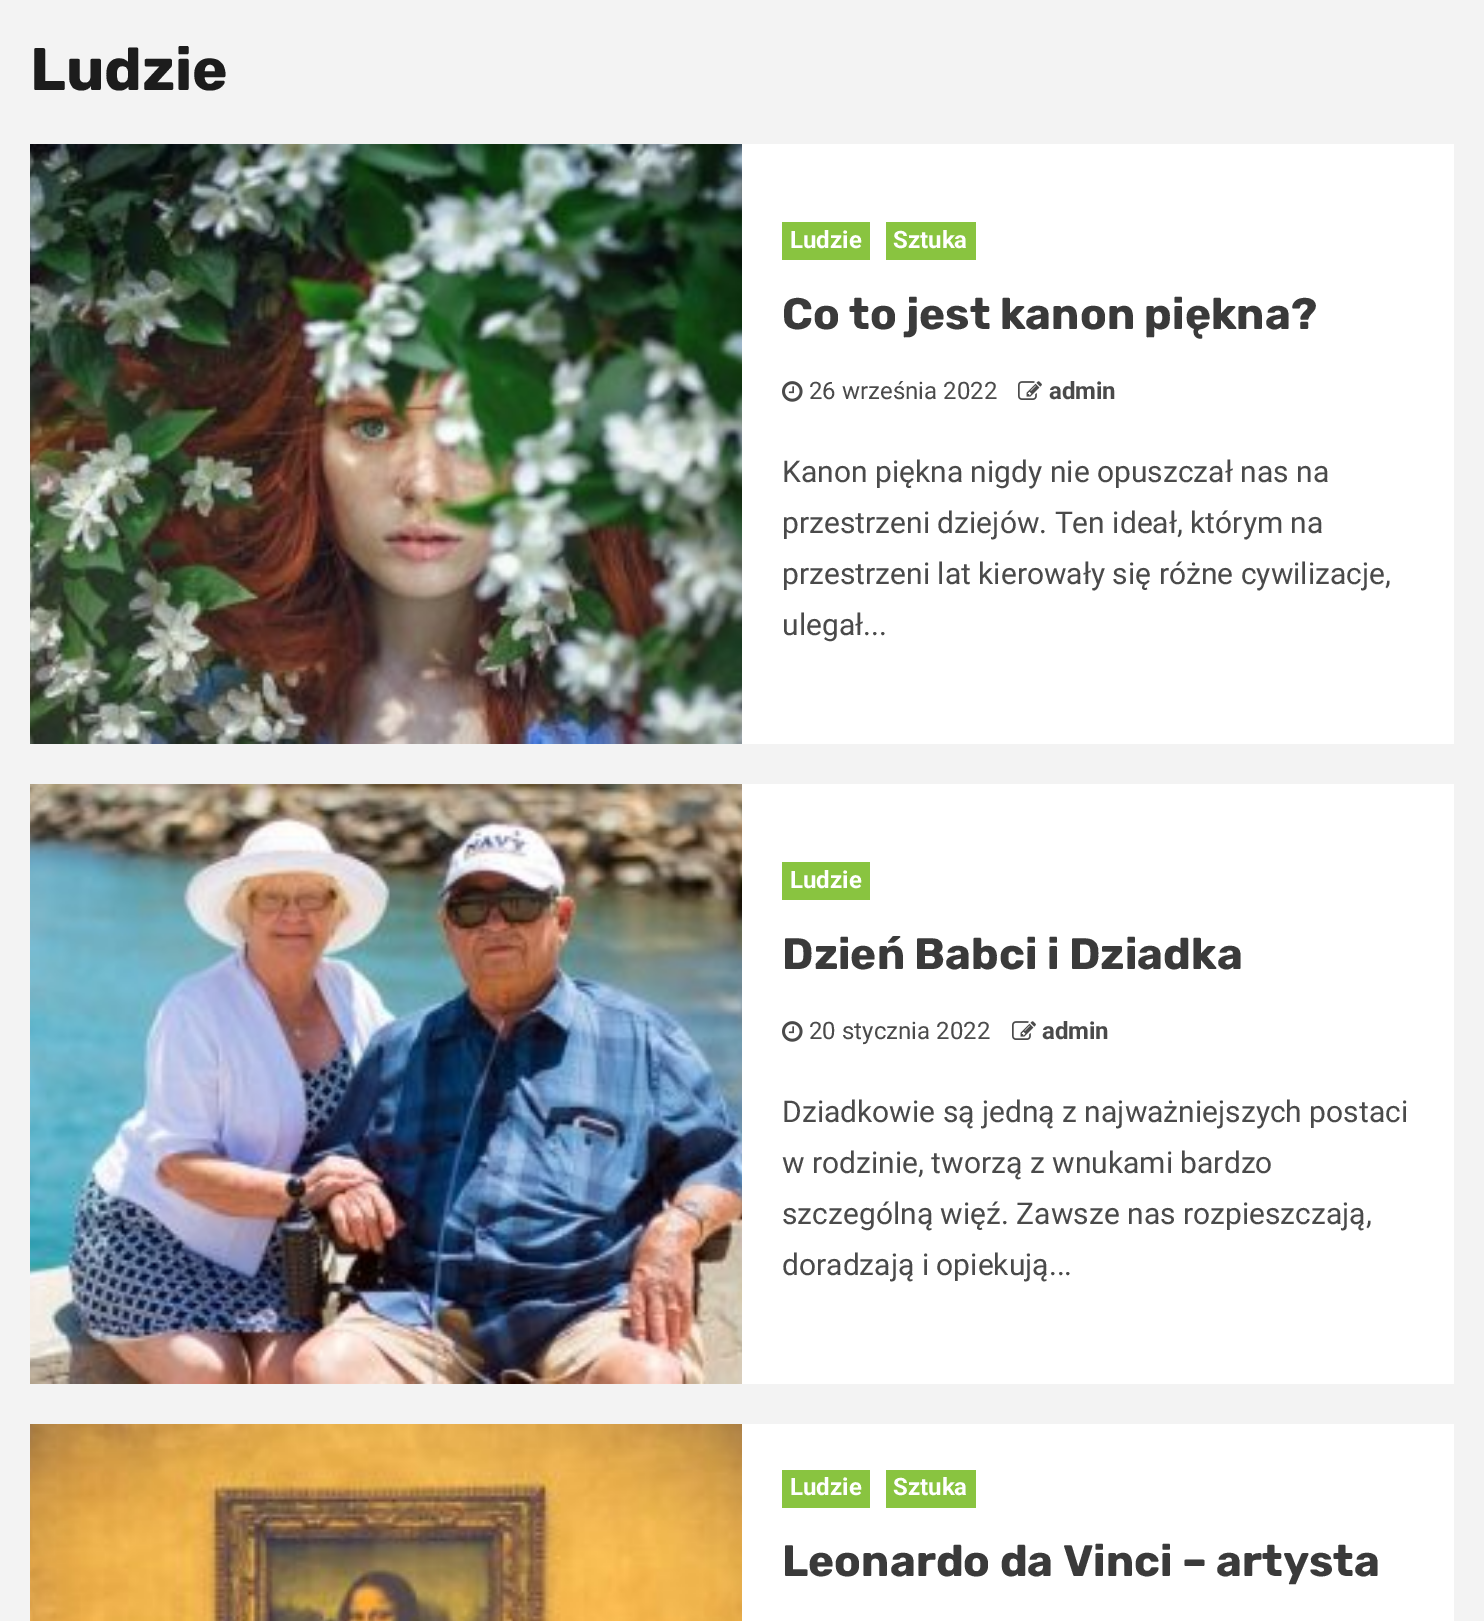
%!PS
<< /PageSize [1484 1621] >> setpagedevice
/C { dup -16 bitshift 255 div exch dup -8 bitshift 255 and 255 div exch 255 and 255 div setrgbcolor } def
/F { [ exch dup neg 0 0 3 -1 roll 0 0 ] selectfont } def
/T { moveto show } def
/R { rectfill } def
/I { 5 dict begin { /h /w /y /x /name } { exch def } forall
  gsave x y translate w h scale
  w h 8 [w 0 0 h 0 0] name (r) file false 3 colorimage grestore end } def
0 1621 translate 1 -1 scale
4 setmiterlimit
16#F3F3F3 C
0 0 1484 1621 R
/Rubik-Bold 60 F
16#1C1C1C C
(Ludzie) 30 90 T
16#FFFFFF C
742 144 712 600 R
(1.rgb) 30 144 712 600 I
16#89C440 C
782 222 88 38 R
/Roboto-Bold 24 F
16#FFFFFF C
(Ludzie) 790 248 T
16#89C440 C
886 222 90 38 R
16#FFFFFF C
(Sztuka) 893 248 T
/Rubik-Bold 44 F
16#3A3A3A C
(Co to jest kanon piękna?) 782 329 T
(2.rgb) 782 381 21 21 I
/Roboto-Regular 24 F
16#4A4A4A C
(26 września 2022) 809 399 T
(3.rgb) 1018 381 24 19 I
/Roboto-Bold 24 F
(admin) 1049 399 T
/Roboto-Regular 30 F
(Kanon piękna nigdy nie opuszczał nas na) 782 482 T
(przestrzeni dziejów. Ten ideał, którym na) 782 533 T
(przestrzeni lat kierowały się różne cywilizacje,) 782 584 T
(ulegał...) 782 635 T
16#FFFFFF C
742 784 712 600 R
(4.rgb) 30 784 712 600 I
16#89C440 C
782 862 88 38 R
/Roboto-Bold 24 F
16#FFFFFF C
(Ludzie) 790 888 T
/Rubik-Bold 44 F
16#3A3A3A C
(Dzień Babci i Dziadka) 782 969 T
(2.rgb) 782 1021 21 21 I
/Roboto-Regular 24 F
16#4A4A4A C
(20 stycznia 2022) 809 1039 T
(3.rgb) 1012 1021 24 19 I
/Roboto-Bold 24 F
(admin) 1042 1039 T
/Roboto-Regular 30 F
(Dziadkowie są jedną z najważniejszych postaci) 782 1122 T
(w rodzinie, tworzą z wnukami bardzo) 782 1173 T
(szczególną więź. Zawsze nas rozpieszczają,) 782 1224 T
(doradzają i opiekują...) 782 1275 T
16#FFFFFF C
742 1424 712 197 R
(5.rgb) 30 1424 712 197 I
16#89C440 C
782 1470 88 38 R
/Roboto-Bold 24 F
16#FFFFFF C
(Ludzie) 790 1495 T
16#89C440 C
886 1470 90 38 R
16#FFFFFF C
(Sztuka) 893 1495 T
/Rubik-Bold 44 F
16#3A3A3A C
(Leonardo da Vinci – artysta) 782 1576 T
showpage
